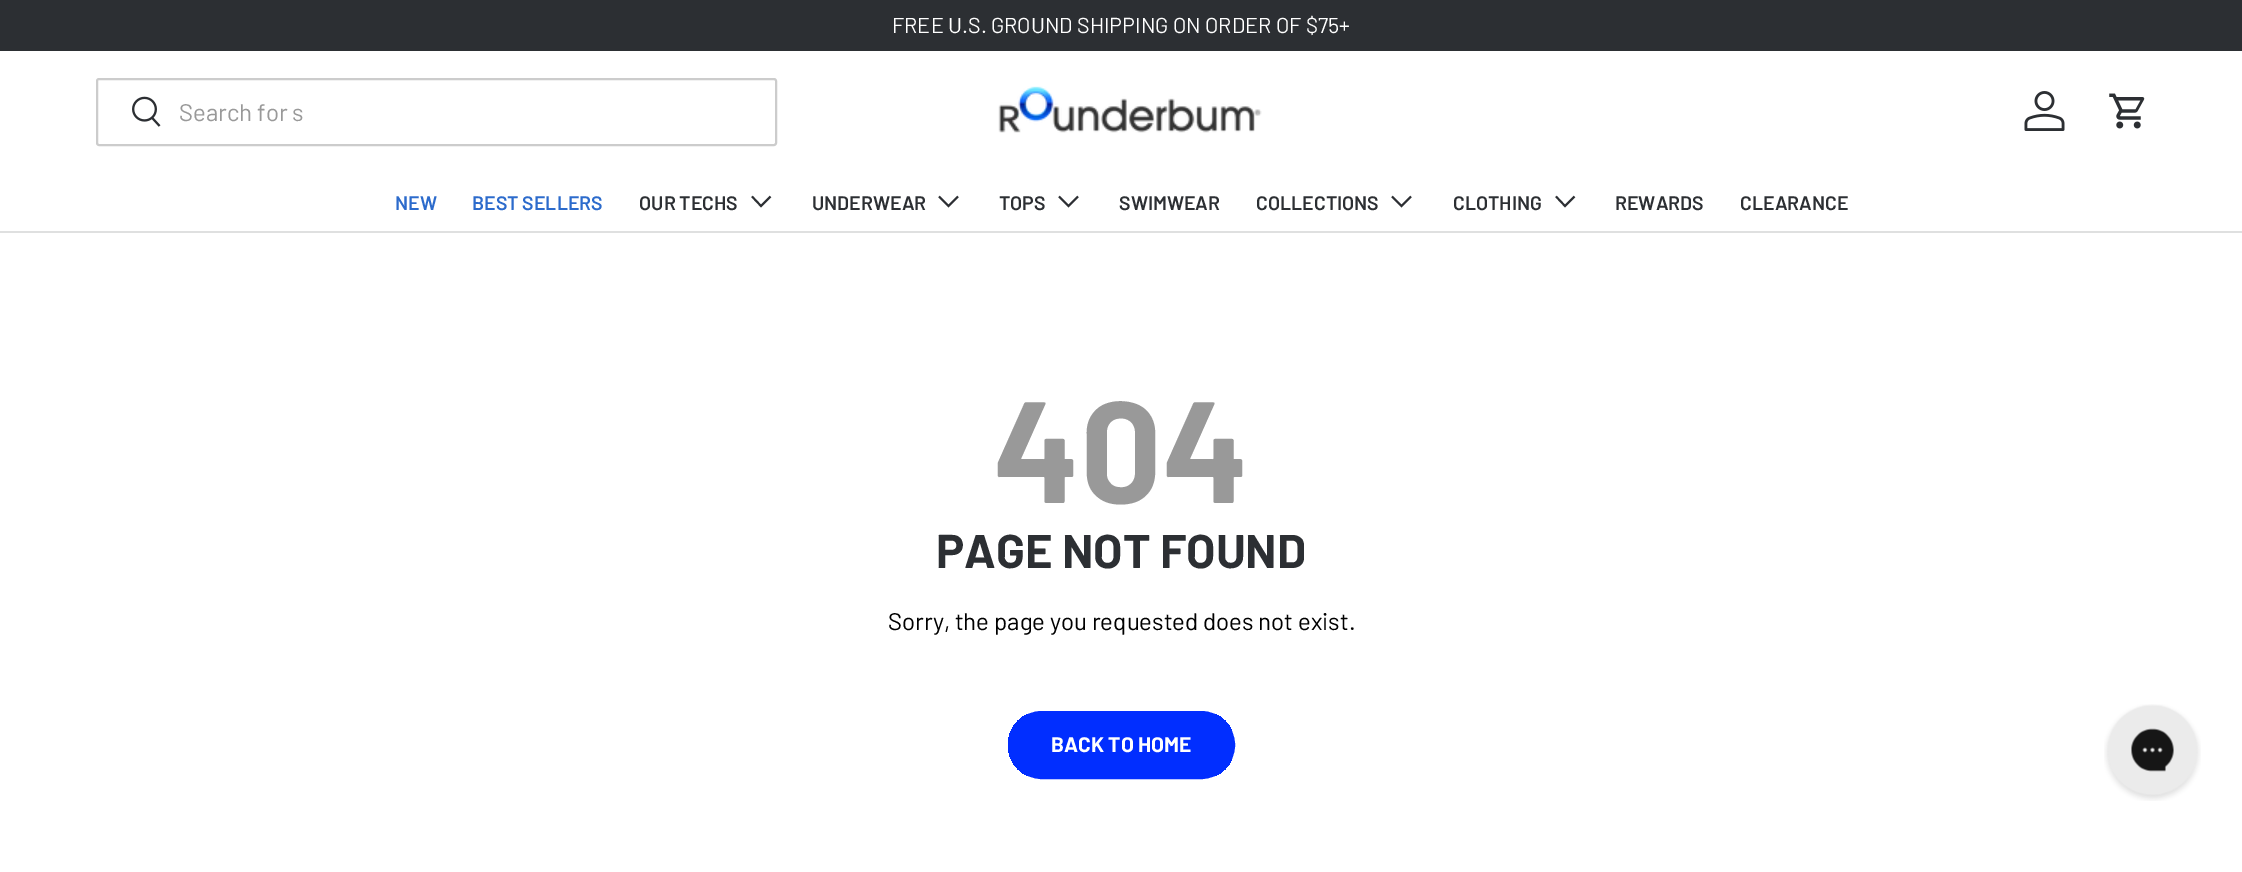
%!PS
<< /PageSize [2242 872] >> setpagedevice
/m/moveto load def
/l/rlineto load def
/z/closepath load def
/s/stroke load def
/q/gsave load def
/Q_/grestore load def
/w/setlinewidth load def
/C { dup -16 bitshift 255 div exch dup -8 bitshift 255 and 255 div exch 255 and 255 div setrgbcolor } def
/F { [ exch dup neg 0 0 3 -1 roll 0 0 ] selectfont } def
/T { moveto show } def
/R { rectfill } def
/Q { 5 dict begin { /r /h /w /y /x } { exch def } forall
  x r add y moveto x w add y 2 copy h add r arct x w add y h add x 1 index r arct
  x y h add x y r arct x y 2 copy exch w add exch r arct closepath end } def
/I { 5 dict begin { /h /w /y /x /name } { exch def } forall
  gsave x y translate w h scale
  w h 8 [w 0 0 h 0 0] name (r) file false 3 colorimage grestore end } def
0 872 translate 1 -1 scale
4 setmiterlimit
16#FFFFFF C
0 0 2242 872 R
16#2C2F33 C
0 0 2242 51 R
/Barlow-Regular 21.6 F
16#FFFFFF C
(FREE U.S. GROUND SHIPPING ON ORDER OF $75+) 892 33 T
16#DFE0E0 C
0 231 2242 2 R
16#CCCCCC C
2 w
97 79 679 66 2 Q s
(1.rgb) 132 96 29 31 I
/Barlow-Regular 24 F
16#999999 C
(Search for s) 179 121 T
(2.rgb) 998 86 264 47 I
(3.rgb) 2024 91 41 40 I
(4.rgb) 2109 93 36 36 I
/Barlow-SemiBold 19.5 F
16#2C6BCC C
(NEW) 395 210 T
(BEST SELLERS) 472 210 T
16#2C2F33 C
(OUR TECHS) 639 210 T
1.9 w
770.5 196.5 m -9.5 9.5 l -9 -9.5 l s
(UNDERWEAR) 812 210 T
958 196.5 m -9.5 9.5 l -9.5 -9.5 l s
(TOPS) 999 210 T
1078 196.5 m -9.5 9.5 l -9.5 -9.5 l s
(SWIMWEAR) 1119 210 T
(COLLECTIONS) 1256 210 T
1411 196.5 m -9.5 9.5 l -9.5 -9.5 l s
(CLOTHING) 1453 210 T
1574.5 196.5 m -9.5 9.5 l -9 -9.5 l s
(REWARDS) 1615 210 T
(CLEARANCE) 1740 210 T
/Barlow-Bold 144 F
16#999999 C
(404) 993 503 T
/Barlow-Bold 47.25 F
16#2C2F33 C
(PAGE NOT FOUND) 936 568 T
/Barlow-Regular 24 F
16#000000 C
(Sorry, the page you requested does not exist.) 888 630 T
q
1008 711 227 68 34 Q clip newpath
q 1008 714 m 224 0 l 0 62 l -224 0 l z clip newpath
<< /ShadingType 2 /ColorSpace /DeviceRGB /Coords [582 665 1219 824] /Extend [true true] /Function << /FunctionType 3 /Domain [0 1] /Functions [<< /FunctionType 2 /Domain [0 1] /C0 [.212 .353 1] /C1 [.212 .353 1] /N 1 >> << /FunctionType 2 /Domain [0 1] /C0 [.004 .18 1] /C1 [.004 .18 1] /N 1 >>] /Bounds [.6] /Encode [0 1 0 1] >> >> shfill Q_
Q_
16#012EFF C
3 w
1009.5 712.5 224 65 32.5 Q s
/Barlow-Bold 21 F
16#FFFFFF C
(BACK TO HOME) 1051 752 T
(5.rgb) 2104 704 97 97 I
showpage
